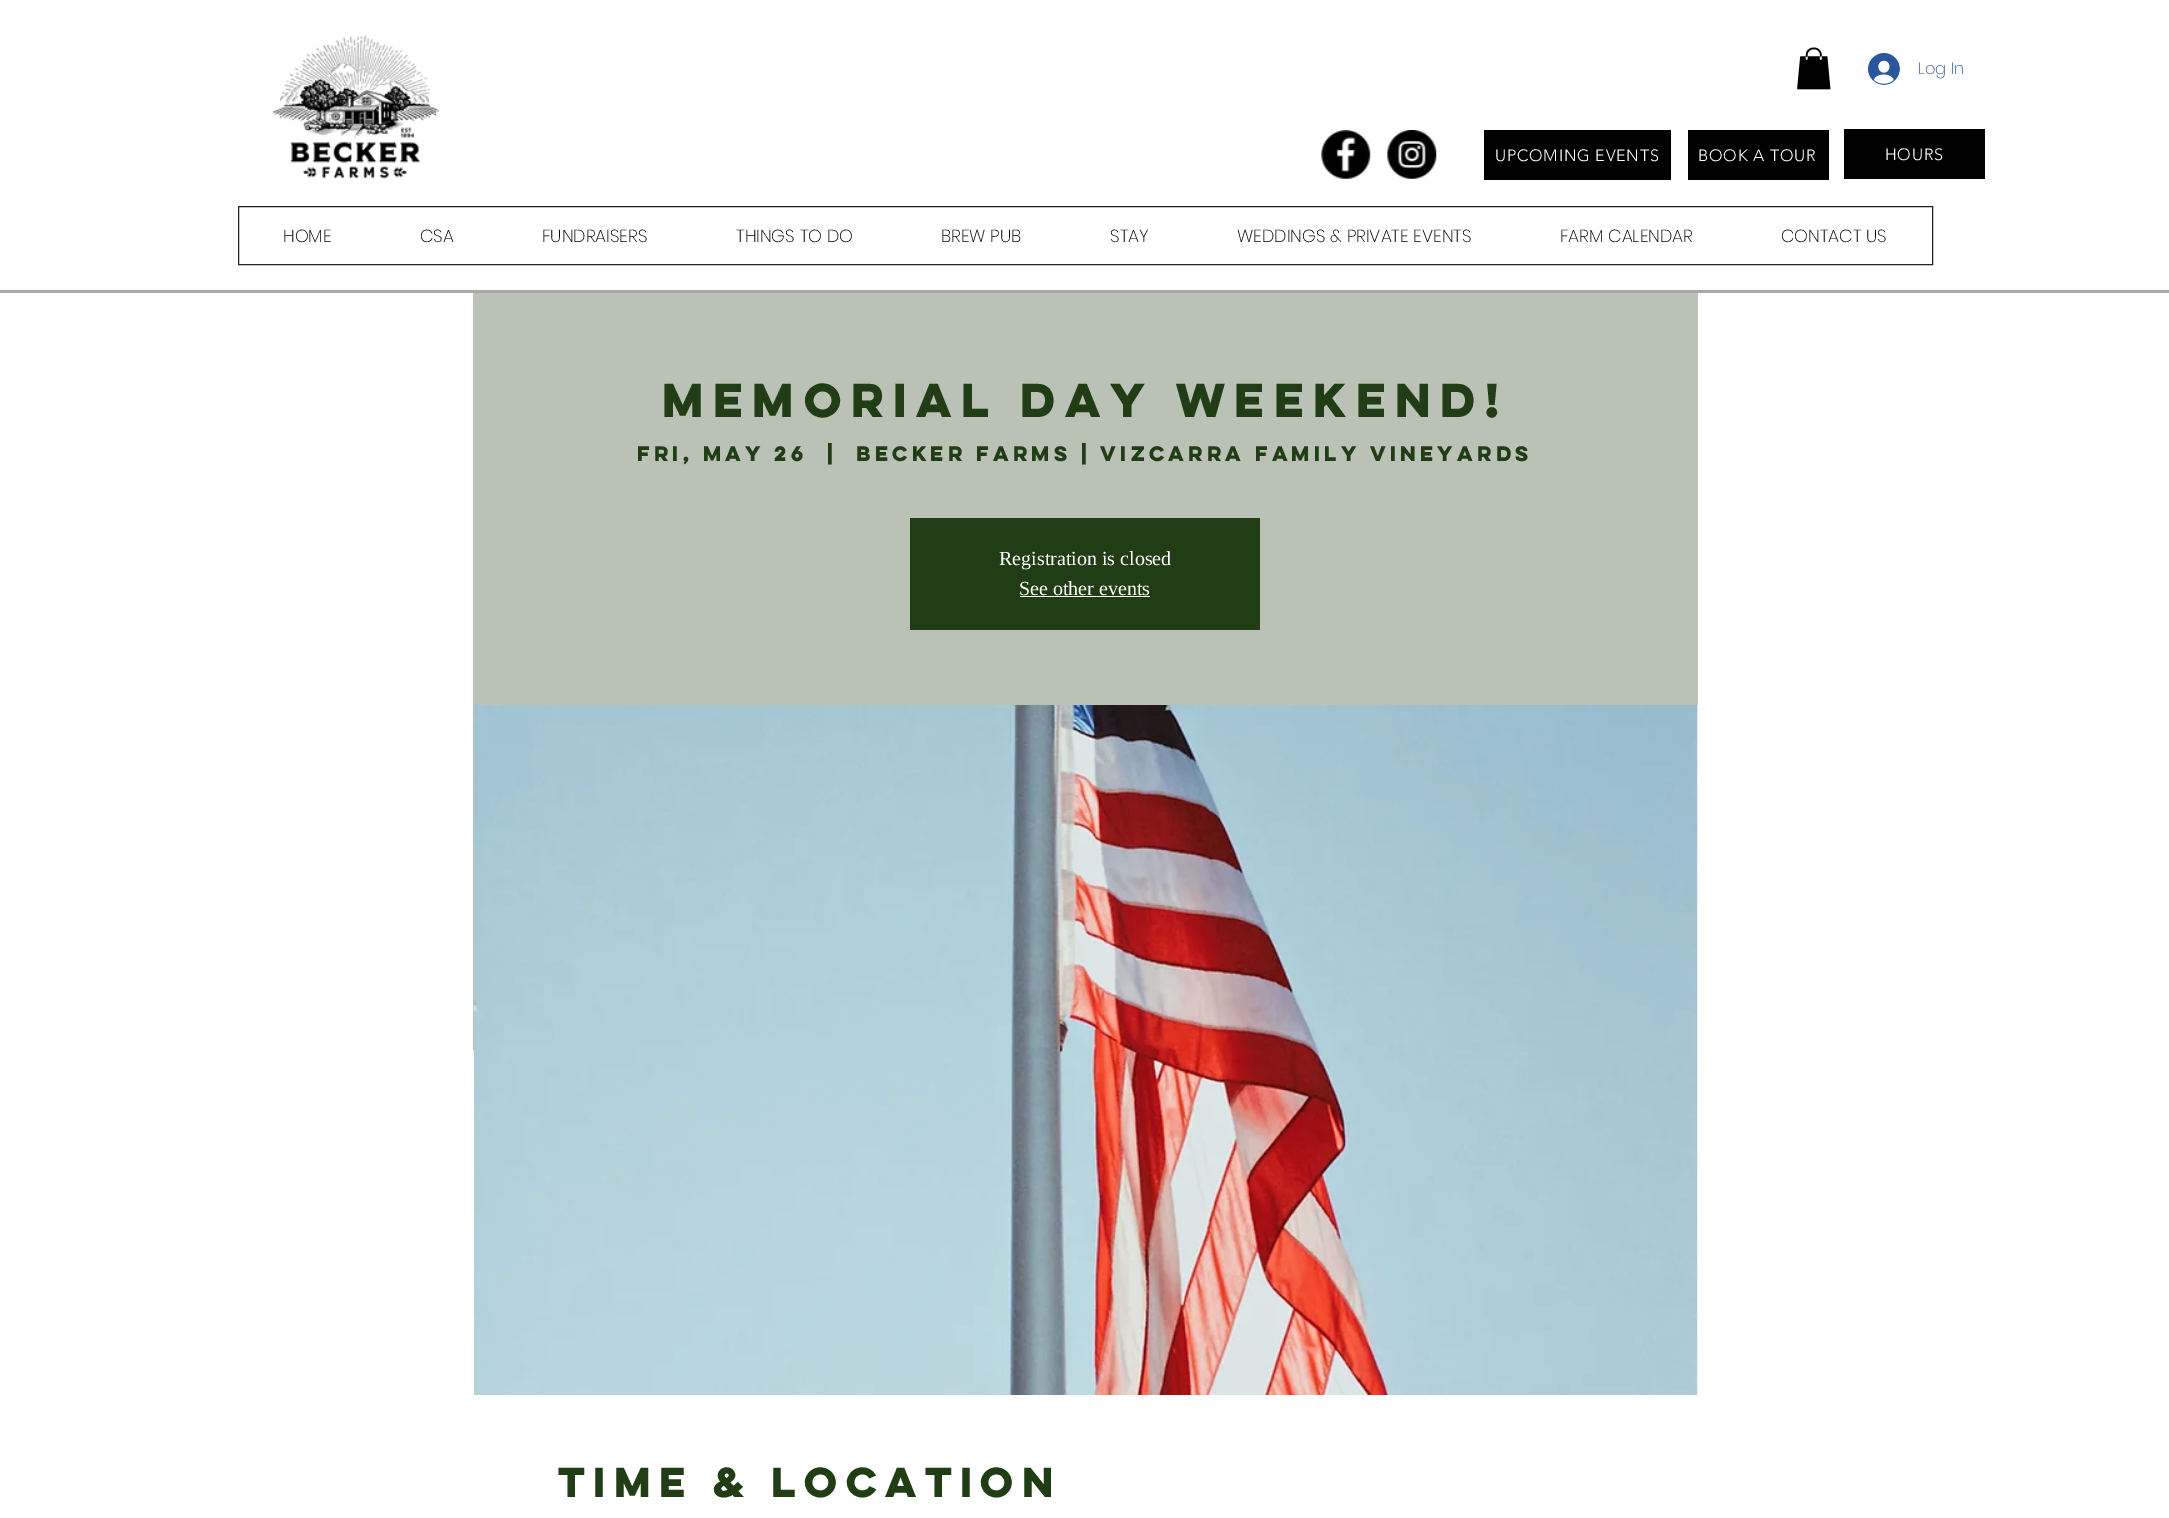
%!PS
<< /PageSize [2169 1518] >> setpagedevice
/m/moveto load def
/C { dup -16 bitshift 255 div exch dup -8 bitshift 255 and 255 div exch 255 and 255 div setrgbcolor } def
/F { [ exch dup neg 0 0 3 -1 roll 0 0 ] selectfont } def
/T { moveto show } def
/R { rectfill } def
/I { 5 dict begin { /h /w /y /x /name } { exch def } forall
  gsave x y translate w h scale
  w h 8 [w 0 0 h 0 0] name (r) file false 3 colorimage grestore end } def
0 1518 translate 1 -1 scale
4 setmiterlimit
16#FFFFFF C
0 0 2169 1518 R
(1.rgb) 272 35 167 144 I
(2.rgb) 1797 47 34 43 I
(3.rgb) 1868 53 32 32 I
/Poppins-ExtraLight 16.25 F
16#2A579B C
(Log In) 1918 74 T
(4.rgb) 1321 130 50 49 I
(5.rgb) 1387 130 50 49 I
16#000000 C
1484 130 187 50 R
/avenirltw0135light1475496-Light 16.25 F
16#FFFFFF C
1495 161 m .75 0 (UPCOMING EVENTS) ashow
16#000000 C
1688 130 141 50 R
16#FFFFFF C
1698 161 m .75 0 (BOOK A TOUR) ashow
16#000000 C
1844 129 141 50 R
16#FFFFFF C
1885 160 m .75 0 (HOURS) ashow
16#242323 C
238.5 206.5 1694 58 rectstroke
/Poppins-ExtraLight 17.5 F
16#000000 C
(HOME) 283 242 T
(CSA) 420 242 T
(FUNDRAISERS) 542 242 T
(THINGS TO DO) 736 242 T
(BREW PUB) 941 242 T
(STAY) 1110 242 T
(WEDDINGS & PRIVATE EVENTS) 1237 242 T
(FARM CALENDAR) 1560 242 T
(CONTACT US) 1781 242 T
16#AAA8A8 C
0 290 2169 3 R
16#B9C2B5 C
473 293 1225 757 R
/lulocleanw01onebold-Bold 42.5 F
16#213D16 C
(Memorial Day Weekend!) 662 417 T
/lulocleanw01onebold-Bold 18.75 F
(Fri, May 26) 637 461 T
(|) 827 461 T
(Becker Farms | Vizcarra Family Vineyards) 856 461 T
910 518 350 112 R
/LiberationSerif-Regular 20 F
16#FFFFFF C
(Registration is closed) 999 565 T
(See other events) 1019 595 T
1020 596 130 1 R
1697 705 1 345 R
(6.rgb) 473 705 1225 690 I
/lulocleanw01onebold-Bold 37.5 F
16#213D16 C
(Time & Location) 558 1497 T
showpage
